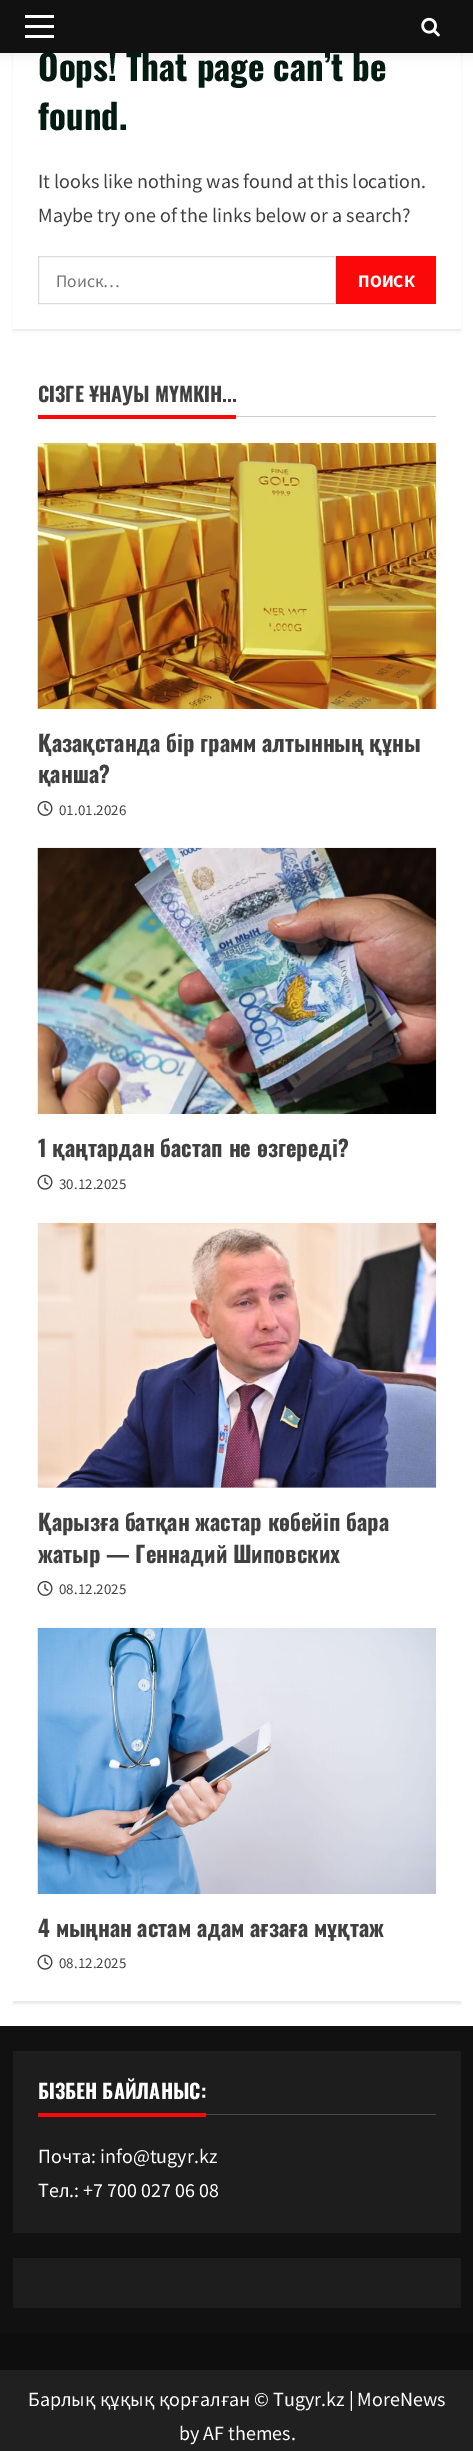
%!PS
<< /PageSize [473 2451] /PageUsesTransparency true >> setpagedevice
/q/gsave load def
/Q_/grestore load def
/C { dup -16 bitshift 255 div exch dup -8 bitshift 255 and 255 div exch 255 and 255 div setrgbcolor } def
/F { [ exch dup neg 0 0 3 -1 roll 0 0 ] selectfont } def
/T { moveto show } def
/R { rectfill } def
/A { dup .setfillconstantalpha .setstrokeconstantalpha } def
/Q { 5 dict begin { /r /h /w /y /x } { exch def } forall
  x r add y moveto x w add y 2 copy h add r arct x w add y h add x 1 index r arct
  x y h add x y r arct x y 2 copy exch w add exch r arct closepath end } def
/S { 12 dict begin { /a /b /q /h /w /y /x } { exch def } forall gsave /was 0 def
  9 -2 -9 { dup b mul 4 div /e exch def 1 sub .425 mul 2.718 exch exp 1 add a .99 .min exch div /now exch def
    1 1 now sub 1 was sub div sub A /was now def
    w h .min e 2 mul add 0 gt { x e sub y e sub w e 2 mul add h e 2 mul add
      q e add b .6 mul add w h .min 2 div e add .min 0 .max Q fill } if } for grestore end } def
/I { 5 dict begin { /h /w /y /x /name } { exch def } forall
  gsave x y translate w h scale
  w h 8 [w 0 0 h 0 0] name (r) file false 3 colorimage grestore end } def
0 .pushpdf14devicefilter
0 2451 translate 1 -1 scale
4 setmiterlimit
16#FFFFFF C
0 0 473 2451 R
16#000000 C
13 19 448 312 0 1 .08 S
16#FFFFFF C
13 53 448 276 R
16#000000 C
0 3 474 52 0 5 .08 S
/Oswald-Bold 35 F
16#031B11 C
(Oops! That page can’t be) 38 81 T
16#111111 C
0 0 473 53 R
16#FFFFFF C
25 25 29 3 R
25 15 29 3 R
25 35 29 3 R
(1.rgb) 421 17 19 20 I
16#031B11 C
(found.) 38 130 T
/SourceSansPro-Regular 20 F
16#404040 C
(It looks like nothing was found at this location.) 38 188 T
(Maybe try one of the links below or a search?) 38 222 T
16#DCDCDC C
38.5 256.5 297 47 rectstroke
/SourceSansPro-Regular 17.5 F
16#757575 C
(Поиск…) 56 287 T
16#FB0909 C
336 256 100 48 R
/SourceSansPro-Bold 17.5 F
16#FFFFFF C
(ПОИСК) 358 287 T
q
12 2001 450 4 rectclip
16#000000 C
13 356 448 1648 0 1 .08 S
Q_
16#CCCCCC C
236 416 200 1 R
/Oswald-Bold 20 F
16#404040 C
(СІЗГЕ ҰНАУЫ МҮМКІН...) 38 402 T
16#FB0909 C
38 415 198 4 R
(2.rgb) 37 442 400 267 I
/Oswald-Bold 22.5 F
16#404040 C
(Қазақстанда бір грамм алтынның құны) 38 752 T
(қанша?) 38 783 T
(3.rgb) 37 801 16 15 I
/SourceSansPro-Regular 15 F
(01.01.2026) 59 815 T
(4.rgb) 37 847 400 267 I
/Oswald-Bold 22.5 F
(1 қаңтардан бастап не өзгереді?) 38 1157 T
(5.rgb) 37 1174 16 16 I
/SourceSansPro-Regular 15 F
(30.12.2025) 59 1189 T
16#ECECEC C
38 1487 398 1 R
(6.rgb) 37 1222 400 266 I
/Oswald-Bold 22.5 F
16#404040 C
(Қарызға батқан жастар көбейіп бара) 38 1531 T
(жатыр — Геннадий Шиповских) 38 1563 T
(3.rgb) 37 1581 16 15 I
/SourceSansPro-Regular 15 F
(08.12.2025) 59 1594 T
(7.rgb) 37 1627 400 267 I
/Oswald-Bold 22.5 F
(4 мыңнан астам адам ағзаға мұқтаж) 38 1937 T
(5.rgb) 37 1954 16 16 I
/SourceSansPro-Regular 15 F
(08.12.2025) 59 1968 T
16#111111 C
0 2026 473 307 R
16#1D1D1D C
13 2051 448 182 R
16#4A4A4A C
206 2114 230 1 R
/Oswald-Bold 20 F
16#FFFFFF C
(БІЗБЕН БАЙЛАНЫС:) 38 2099 T
16#FB0909 C
38 2113 168 4 R
/SourceSansPro-Regular 20 F
16#FFFFFF C
(Почта: info@tugyr.kz) 38 2163 T
(Тел.: +7 700 027 06 08) 38 2197 T
16#1D1D1D C
13 2258 448 50 R
16#0E0E0E C
0 2333 473 37 R
16#202020 C
0 2370 473 81 R
16#FFFFFF C
(Барлық құқық қорғалған © Tugyr.kz | MoreNews) 28 2406 T
(by AF themes.) 179 2440 T
.poppdf14devicefilter showpage
